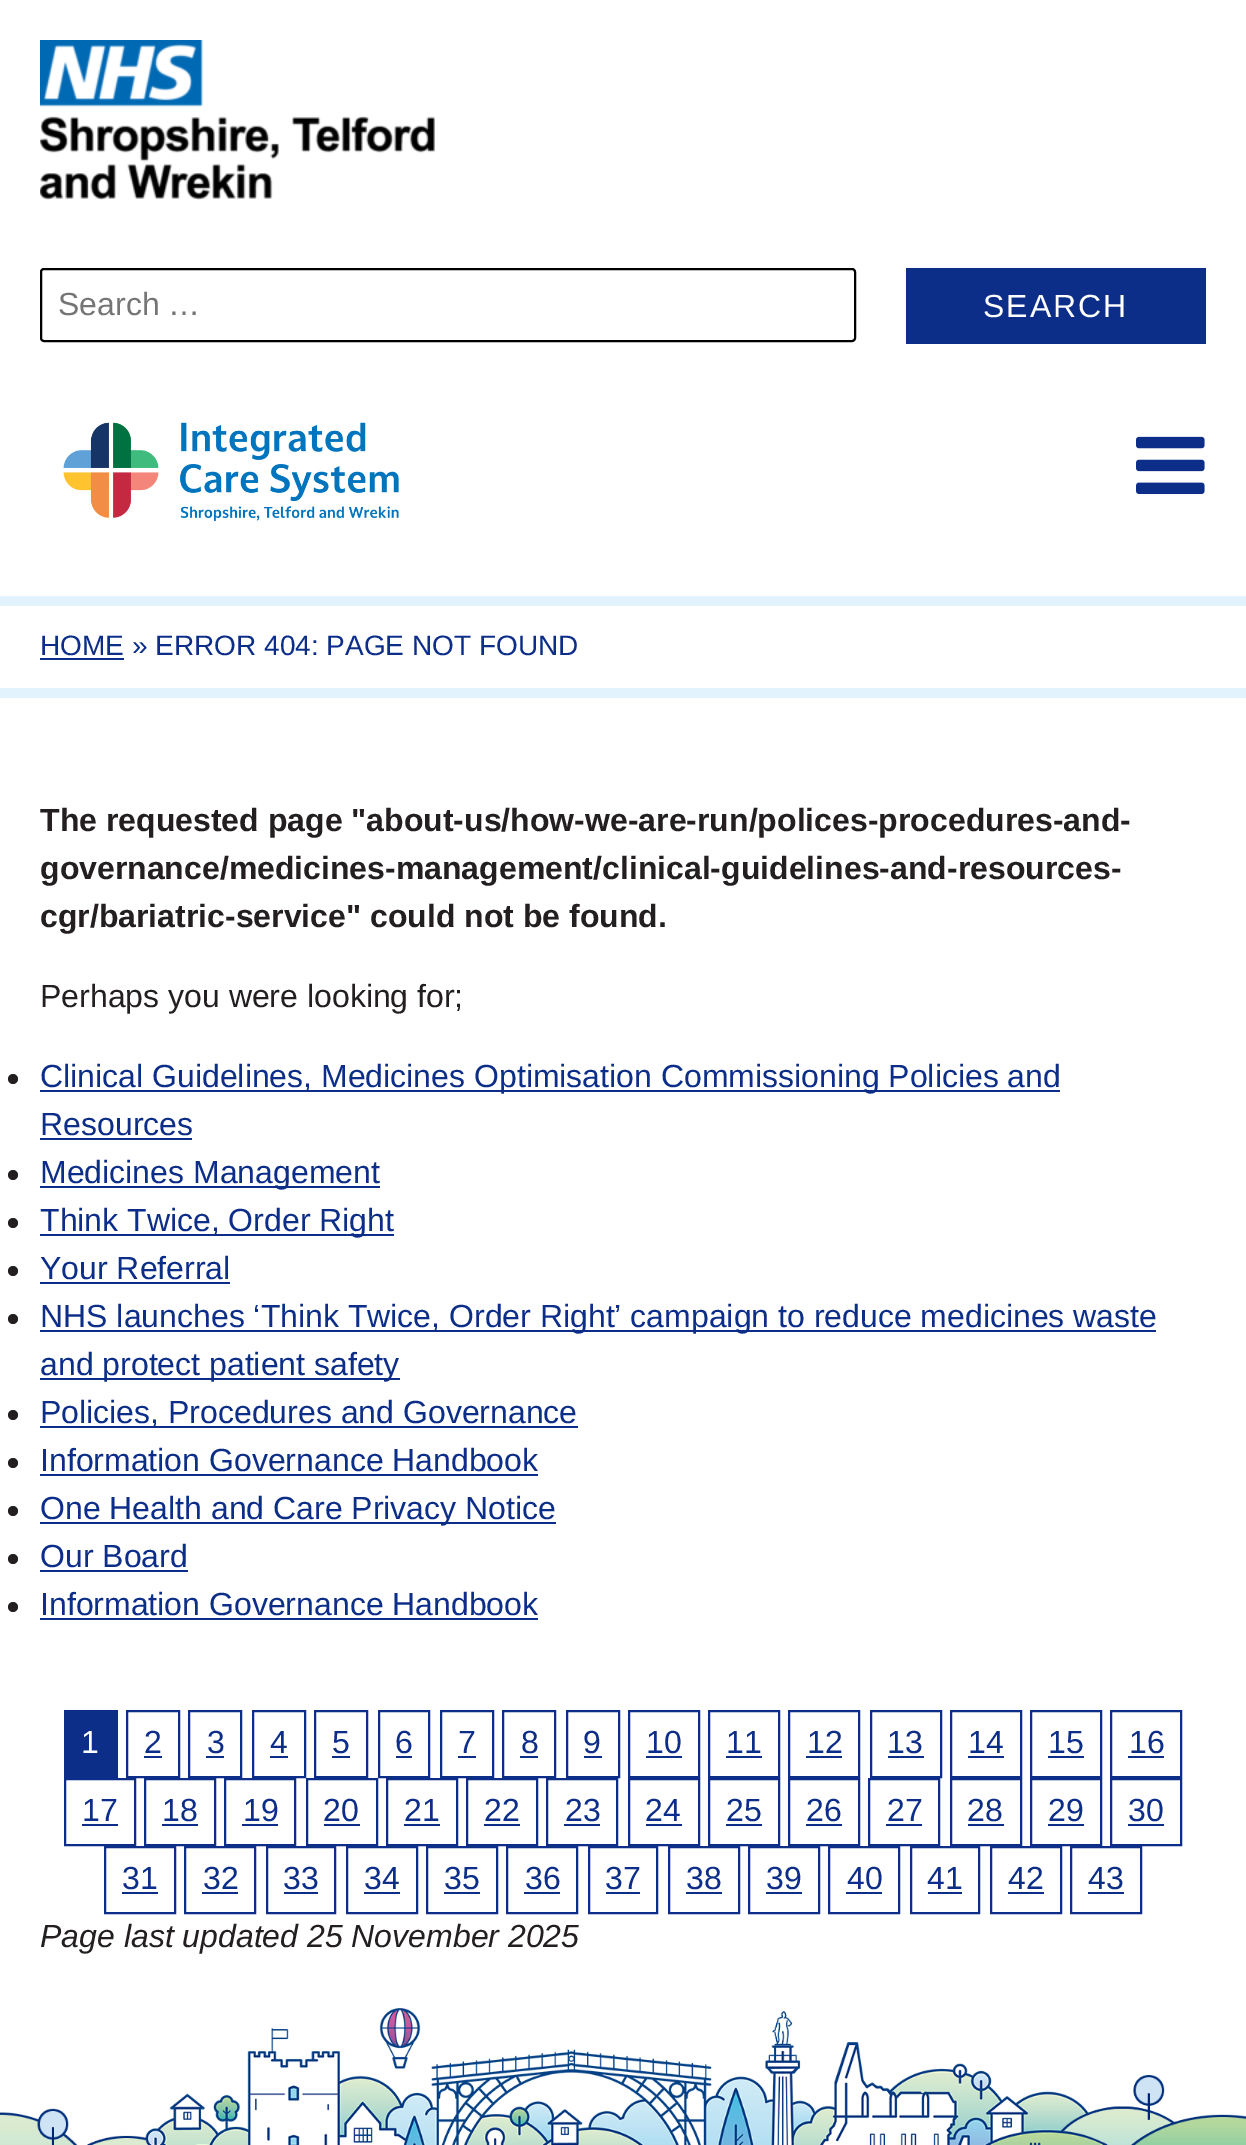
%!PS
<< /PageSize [1246 2145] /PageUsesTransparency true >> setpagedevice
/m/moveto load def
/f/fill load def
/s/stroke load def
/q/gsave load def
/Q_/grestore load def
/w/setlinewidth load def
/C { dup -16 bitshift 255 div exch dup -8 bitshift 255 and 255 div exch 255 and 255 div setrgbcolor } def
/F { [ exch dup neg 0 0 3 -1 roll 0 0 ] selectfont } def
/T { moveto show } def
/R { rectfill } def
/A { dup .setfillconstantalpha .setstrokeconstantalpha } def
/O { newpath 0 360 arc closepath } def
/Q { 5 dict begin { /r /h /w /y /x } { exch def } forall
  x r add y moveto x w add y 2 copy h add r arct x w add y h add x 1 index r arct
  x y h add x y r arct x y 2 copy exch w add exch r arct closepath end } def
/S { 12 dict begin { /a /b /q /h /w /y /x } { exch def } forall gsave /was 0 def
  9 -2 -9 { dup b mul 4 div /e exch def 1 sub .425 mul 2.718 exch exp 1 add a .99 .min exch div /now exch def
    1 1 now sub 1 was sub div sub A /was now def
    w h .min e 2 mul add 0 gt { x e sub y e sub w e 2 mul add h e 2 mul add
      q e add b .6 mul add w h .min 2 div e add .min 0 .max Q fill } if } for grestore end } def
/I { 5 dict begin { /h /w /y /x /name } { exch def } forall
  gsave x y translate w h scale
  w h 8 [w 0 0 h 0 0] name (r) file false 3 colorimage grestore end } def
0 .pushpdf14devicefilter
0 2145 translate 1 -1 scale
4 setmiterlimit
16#FFFFFF C
0 0 1246 2145 R
(1.rgb) 40 40 395 160 I
16#000000 C
2 w
41 269 814 72 3 Q s
/LiberationSans-Regular 32 F
16#757575 C
(Search …) 58 315 T
q
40 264 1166 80 rectclip
16#000000 C
908 270 300 78 0 2 .2 S
Q_
16#0C2E88 C
906 268 300 76 R
16#FFFFFF C
983 317 m 2 0 (SEARCH) ashow
(2.rgb) 63 422 336 99 I
(3.rgb) 1136 436 69 58 I
16#E2F3FD C
0 596 1246 10 R
0 688 1246 10 R
/LiberationSans-Regular 28 F
16#0C2E88 C
(HOME » ERROR 404: PAGE NOT FOUND) 40 655 T
40 658 84 2 R
/LiberationSans-Bold 32 F
16#231F20 C
(The requested page "about-us/how-we-are-run/polices-procedures-and-) 40 831 T
(governance/medicines-management/clinical-guidelines-and-resources-) 40 879 T
(cgr/bariatric-service" could not be found.) 40 927 T
/LiberationSans-Regular 32 F
(Perhaps you were looking for;) 40 1007 T
13 1079 5 O f
16#0C2E88 C
40 1090 1020 2 R
(Clinical Guidelines, Medicines Optimisation Commissioning Policies and) 40 1087 T
(Resources) 40 1135 T
40 1138 152 2 R
16#231F20 C
13 1175 5 O f
16#0C2E88 C
40 1186 340 2 R
(Medicines Management) 40 1183 T
16#231F20 C
13 1223 5 O f
16#0C2E88 C
40 1234 354 2 R
(Think Twice, Order Right) 40 1231 T
16#231F20 C
13 1271 5 O f
16#0C2E88 C
(Your Referral) 40 1279 T
40 1282 190 2 R
16#231F20 C
13 1319 5 O f
16#0C2E88 C
40 1330 1116 2 R
(NHS launches ‘Think Twice, Order Right’ campaign to reduce medicines waste) 40 1327 T
40 1378 360 2 R
(and protect patient safety) 40 1375 T
16#231F20 C
13 1415 5 O f
16#0C2E88 C
40 1426 538 2 R
(Policies, Procedures and Governance) 40 1423 T
16#231F20 C
13 1463 5 O f
16#0C2E88 C
(Information Governance Handbook) 40 1471 T
40 1474 498 2 R
16#231F20 C
13 1511 5 O f
16#0C2E88 C
40 1522 516 2 R
(One Health and Care Privacy Notice) 40 1519 T
16#231F20 C
13 1559 5 O f
16#0C2E88 C
(Our Board) 40 1567 T
40 1570 148 2 R
16#231F20 C
13 1607 5 O f
16#0C2E88 C
(Information Governance Handbook) 40 1615 T
40 1618 498 2 R
64 1710 54 68 R
16#FFFFFF C
(1) 81 1753 T
16#0C2E88 C
127 1711 52 66 rectstroke
(2) 144 1753 T
144 1756 18 2 R
189 1711 52 66 rectstroke
(3) 207 1753 T
206 1756 18 2 R
253 1711 52 66 rectstroke
(4) 270 1753 T
270 1756 18 2 R
315 1711 52 66 rectstroke
(5) 332 1753 T
332 1756 18 2 R
379 1711 50 66 rectstroke
(6) 395 1753 T
396 1756 16 2 R
441 1711 52 66 rectstroke
(7) 458 1753 T
458 1756 18 2 R
503 1711 52 66 rectstroke
(8) 521 1753 T
520 1756 18 2 R
567 1711 52 66 rectstroke
(9) 583 1753 T
584 1756 18 2 R
629 1711 70 66 rectstroke
(10) 646 1753 T
646 1756 36 2 R
709 1711 70 66 rectstroke
(11) 726 1753 T
726 1756 36 2 R
789 1711 70 66 rectstroke
(12) 807 1753 T
806 1756 36 2 R
871 1711 70 66 rectstroke
(13) 887 1753 T
888 1756 36 2 R
951 1711 70 66 rectstroke
(14) 968 1753 T
968 1756 36 2 R
1031 1711 70 66 rectstroke
(15) 1048 1753 T
1048 1756 36 2 R
1111 1711 70 66 rectstroke
(16) 1129 1753 T
1128 1756 36 2 R
65 1779 70 66 rectstroke
(17) 82 1821 T
82 1824 36 2 R
145 1779 70 66 rectstroke
(18) 162 1821 T
162 1824 36 2 R
225 1779 70 66 rectstroke
(19) 243 1821 T
242 1824 36 2 R
307 1779 70 66 rectstroke
(20) 323 1821 T
324 1824 36 2 R
387 1779 70 66 rectstroke
(21) 404 1821 T
404 1824 36 2 R
467 1779 70 66 rectstroke
(22) 484 1821 T
484 1824 36 2 R
547 1779 70 66 rectstroke
(23) 565 1821 T
564 1824 36 2 R
629 1779 70 66 rectstroke
(24) 645 1821 T
646 1824 36 2 R
709 1779 70 66 rectstroke
(25) 726 1821 T
726 1824 36 2 R
789 1779 70 66 rectstroke
(26) 806 1821 T
806 1824 36 2 R
869 1779 70 66 rectstroke
(27) 887 1821 T
886 1824 36 2 R
951 1779 70 66 rectstroke
(28) 967 1821 T
968 1824 36 2 R
1031 1779 70 66 rectstroke
(29) 1048 1821 T
1048 1824 36 2 R
1111 1779 70 66 rectstroke
(30) 1128 1821 T
1128 1824 36 2 R
105 1847 70 66 rectstroke
(31) 122 1889 T
122 1892 36 2 R
185 1847 70 66 rectstroke
(32) 203 1889 T
202 1892 36 2 R
267 1847 68 66 rectstroke
(33) 283 1889 T
284 1892 34 2 R
347 1847 70 66 rectstroke
(34) 364 1889 T
364 1892 36 2 R
427 1847 70 66 rectstroke
(35) 444 1889 T
444 1892 36 2 R
507 1847 70 66 rectstroke
(36) 525 1889 T
524 1892 36 2 R
589 1847 68 66 rectstroke
(37) 605 1889 T
606 1892 34 2 R
669 1847 70 66 rectstroke
(38) 686 1889 T
686 1892 36 2 R
749 1847 70 66 rectstroke
(39) 766 1889 T
766 1892 36 2 R
829 1847 70 66 rectstroke
(40) 847 1889 T
846 1892 36 2 R
911 1847 68 66 rectstroke
(41) 927 1889 T
928 1892 34 2 R
991 1847 70 66 rectstroke
(42) 1008 1889 T
1008 1892 36 2 R
1071 1847 70 66 rectstroke
(43) 1088 1889 T
1088 1892 36 2 R
/LiberationSans-Italic 32 F
16#231F20 C
(Page last updated 25 November 2025) 40 1947 T
(4.rgb) 0 2008 1246 137 I
.poppdf14devicefilter showpage
